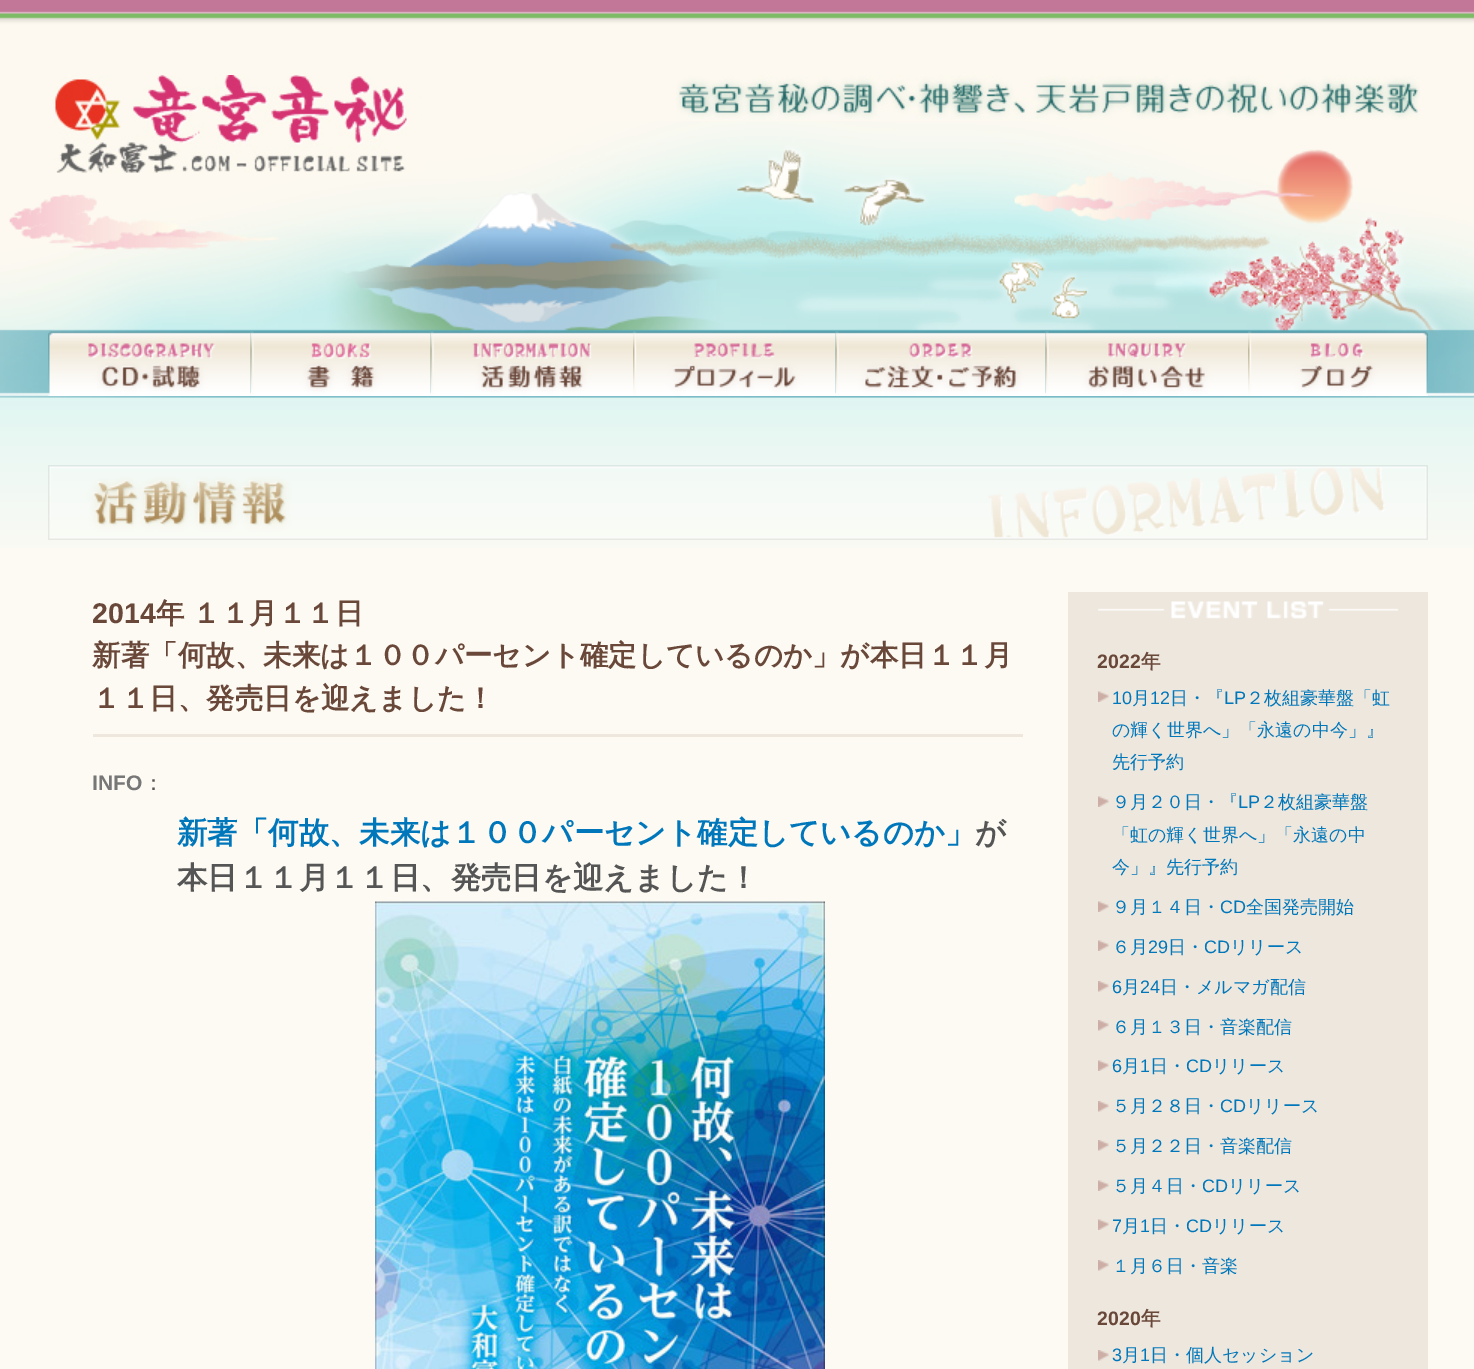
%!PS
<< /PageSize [1474 1369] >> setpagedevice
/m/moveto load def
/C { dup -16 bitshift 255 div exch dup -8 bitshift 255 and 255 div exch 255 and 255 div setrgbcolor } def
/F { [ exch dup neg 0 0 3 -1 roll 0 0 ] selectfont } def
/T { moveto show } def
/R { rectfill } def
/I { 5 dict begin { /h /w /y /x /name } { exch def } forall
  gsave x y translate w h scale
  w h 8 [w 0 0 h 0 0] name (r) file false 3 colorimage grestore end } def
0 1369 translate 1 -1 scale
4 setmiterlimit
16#FDFAF3 C
0 0 1474 1369 R
(1.rgb) 0 0 1474 121 I
(2.rgb) 0 121 1474 427 I
(3.rgb) 53 75 370 98 I
(4.rgb) 676 75 744 45 I
(5.rgb) 48 331 203 65 I
(6.rgb) 250 331 181 65 I
(7.rgb) 430 331 203 65 I
(8.rgb) 633 331 203 65 I
(9.rgb) 835 331 211 65 I
(10.rgb) 1045 331 203 65 I
(11.rgb) 1248 331 180 65 I
(12.rgb) 48 465 1380 75 I
16#EEE7DD C
1068 592 360 777 R
93 734 930 3 R
/LiberationSans-Bold 28.5 F
16#694739 C
(2014) 92 623 T
/WenQuanYiZenHei-Bold 28.5 F
156 623 m -1 0 32 (年 １１月１１日) widthshow
(新著「何故、未来は１００パーセント確定しているのか」が本日１１月) 92 665 T
(１１日、発売日を迎えました！) 92 708 T
/LiberationSans-Bold 21 F
16#777777 C
(INFO) 92 790 T
/WenQuanYiZenHei-Medium 21 F
16#555555 C
(：) 143 790 T
/WenQuanYiZenHei-Bold 30.4 F
16#0077BB C
(新著「何故、未来は１００パーセント確定しているのか」) 177 843 T
16#555555 C
(が) 975 843 T
(本日１１月１１日、発売日を迎えました！) 177 888 T
(13.rgb) 375 901 450 468 I
(14.rgb) 1098 601 301 18 I
/LiberationSans-Bold 19.5 F
16#694739 C
(2022) 1097 668 T
/WenQuanYiZenHei-Bold 19.5 F
(年) 1141 668 T
(15.rgb) 1098 691 11 11 I
/LiberationSans-Regular 18 F
16#0077BB C
(10) 1112 704 T
/WenQuanYiZenHei-Medium 18 F
(月) 1132 704 T
/LiberationSans-Regular 18 F
(12) 1150 704 T
/WenQuanYiZenHei-Medium 18 F
(日・『) 1170 704 T
/LiberationSans-Regular 18 F
(LP) 1224 704 T
/WenQuanYiZenHei-Medium 18 F
(２枚組豪華盤「虹) 1246 704 T
(の輝く世界へ」「永遠の中今」』) 1112 736 T
(先行予約) 1112 768 T
(15.rgb) 1098 796 11 11 I
(９月２０日・『) 1112 808 T
/LiberationSans-Regular 18 F
(LP) 1238 808 T
/WenQuanYiZenHei-Medium 18 F
(２枚組豪華盤) 1260 808 T
(「虹の輝く世界へ」「永遠の中) 1112 841 T
(今」』先行予約) 1112 873 T
(15.rgb) 1098 901 11 11 I
(９月１４日・) 1112 913 T
/LiberationSans-Regular 18 F
(CD) 1220 913 T
/WenQuanYiZenHei-Medium 18 F
(全国発売開始) 1246 913 T
(15.rgb) 1098 940 11 11 I
(６月) 1112 953 T
/LiberationSans-Regular 18 F
(29) 1148 953 T
/WenQuanYiZenHei-Medium 18 F
(日・) 1168 953 T
/LiberationSans-Regular 18 F
(CD) 1204 953 T
/WenQuanYiZenHei-Medium 18 F
(リリース) 1230 953 T
(16.rgb) 1098 981 11 11 I
/LiberationSans-Regular 18 F
(6) 1112 993 T
/WenQuanYiZenHei-Medium 18 F
(月) 1122 993 T
/LiberationSans-Regular 18 F
(24) 1140 993 T
/WenQuanYiZenHei-Medium 18 F
(日・メルマガ配信) 1160 993 T
(16.rgb) 1098 1020 11 11 I
(６月１３日・音楽配信) 1112 1033 T
(15.rgb) 1098 1060 11 11 I
/LiberationSans-Regular 18 F
(6) 1112 1072 T
/WenQuanYiZenHei-Medium 18 F
(月) 1122 1072 T
/LiberationSans-Regular 18 F
(1) 1140 1072 T
/WenQuanYiZenHei-Medium 18 F
(日・) 1150 1072 T
/LiberationSans-Regular 18 F
(CD) 1186 1072 T
/WenQuanYiZenHei-Medium 18 F
(リリース) 1212 1072 T
(16.rgb) 1098 1101 11 11 I
(５月２８日・) 1112 1112 T
/LiberationSans-Regular 18 F
(CD) 1220 1112 T
/WenQuanYiZenHei-Medium 18 F
(リリース) 1246 1112 T
(16.rgb) 1098 1140 11 11 I
(５月２２日・音楽配信) 1112 1152 T
(15.rgb) 1098 1180 11 11 I
(５月４日・) 1112 1192 T
/LiberationSans-Regular 18 F
(CD) 1202 1192 T
/WenQuanYiZenHei-Medium 18 F
(リリース) 1228 1192 T
(15.rgb) 1098 1219 11 11 I
/LiberationSans-Regular 18 F
(7) 1112 1232 T
/WenQuanYiZenHei-Medium 18 F
(月) 1122 1232 T
/LiberationSans-Regular 18 F
(1) 1140 1232 T
/WenQuanYiZenHei-Medium 18 F
(日・) 1150 1232 T
/LiberationSans-Regular 18 F
(CD) 1186 1232 T
/WenQuanYiZenHei-Medium 18 F
(リリース) 1212 1232 T
(16.rgb) 1098 1260 11 11 I
(１月６日・音楽) 1112 1272 T
/LiberationSans-Bold 19.5 F
16#694739 C
(2020) 1097 1325 T
/WenQuanYiZenHei-Bold 19.5 F
(年) 1141 1325 T
(16.rgb) 1098 1350 11 11 I
/LiberationSans-Regular 18 F
16#0077BB C
(3) 1112 1361 T
/WenQuanYiZenHei-Medium 18 F
(月) 1122 1361 T
/LiberationSans-Regular 18 F
(1) 1140 1361 T
/WenQuanYiZenHei-Medium 18 F
(日・個人セッション) 1150 1361 T
showpage
